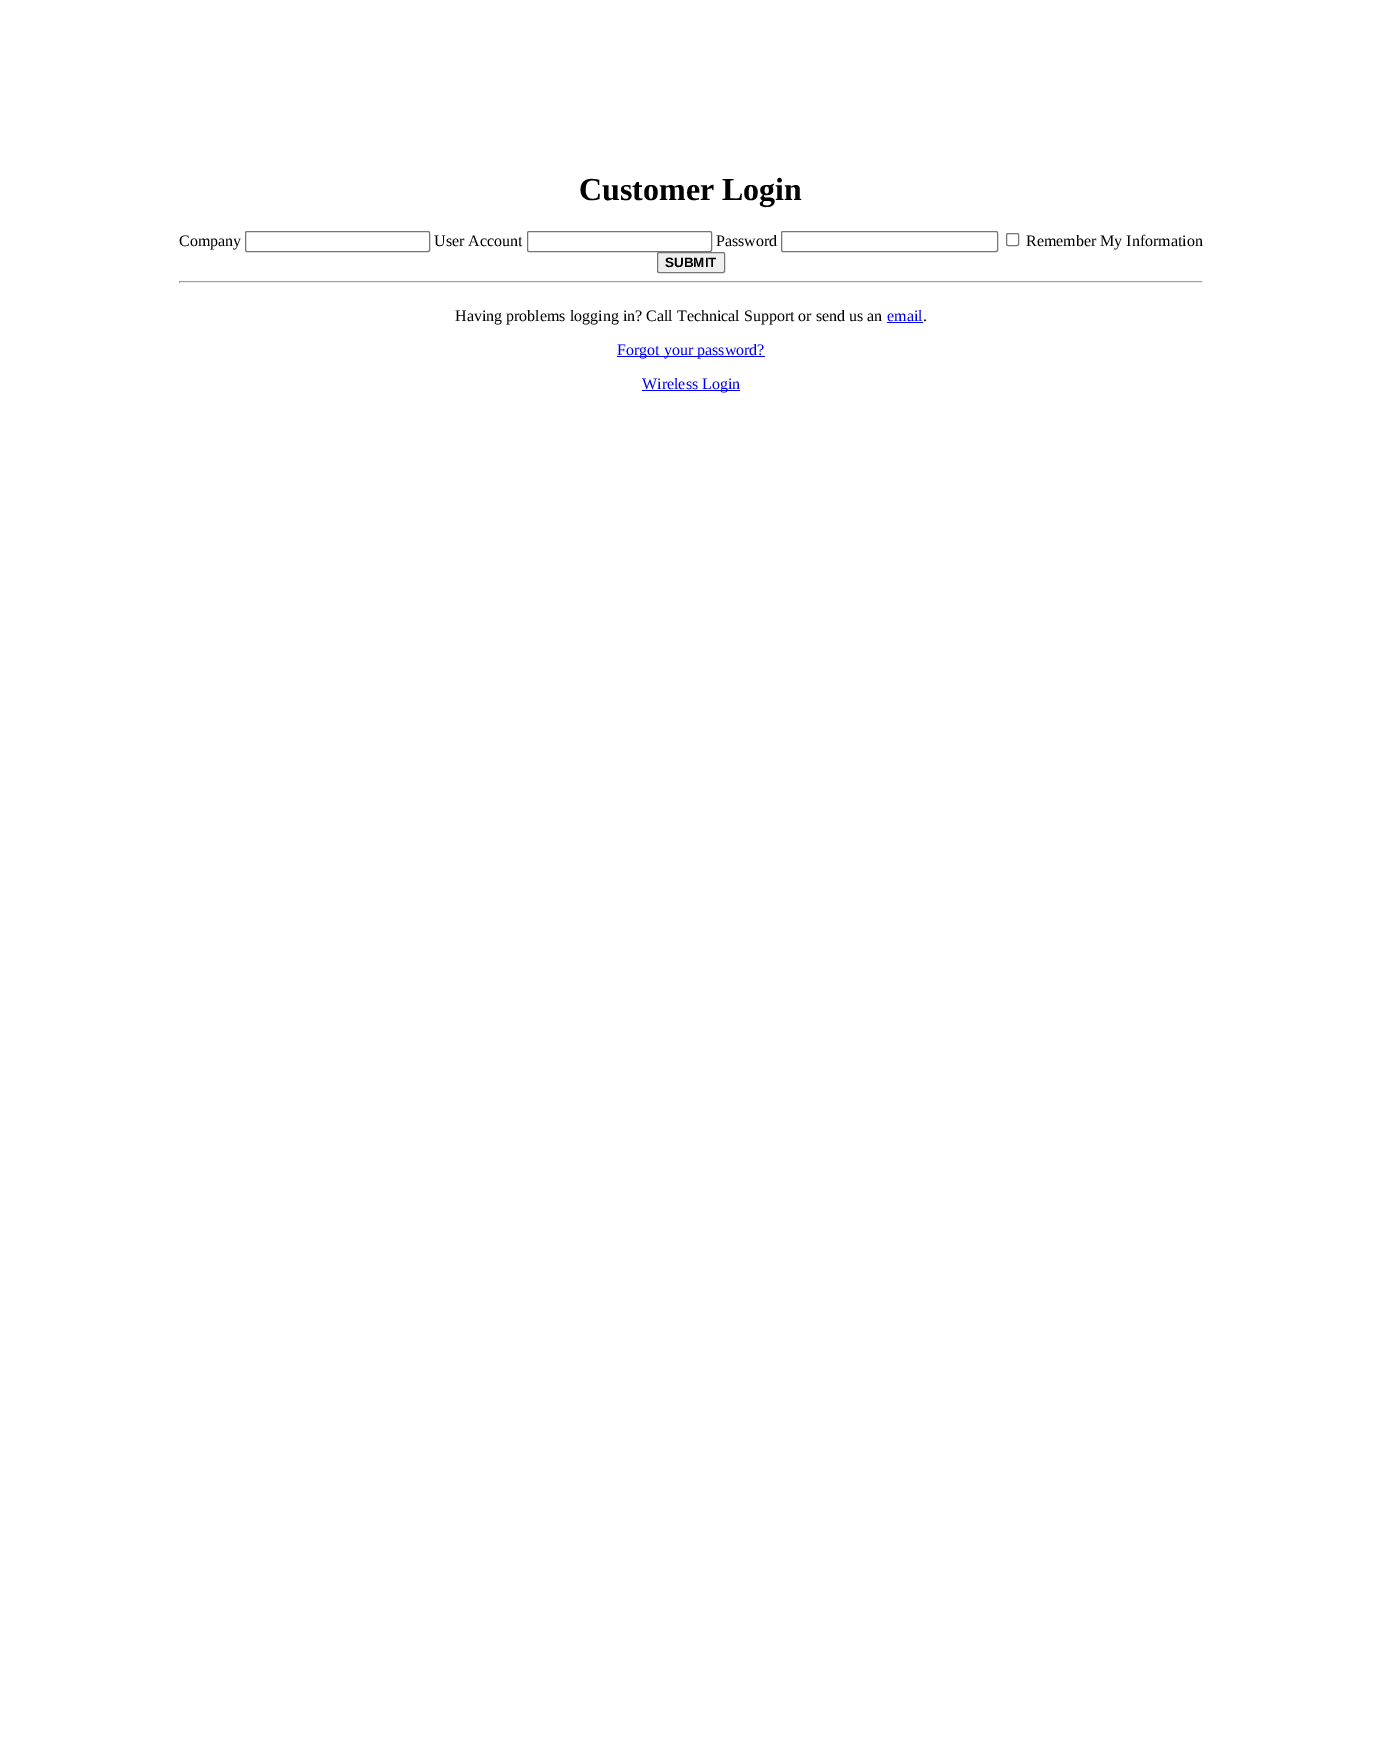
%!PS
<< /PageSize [1382 1743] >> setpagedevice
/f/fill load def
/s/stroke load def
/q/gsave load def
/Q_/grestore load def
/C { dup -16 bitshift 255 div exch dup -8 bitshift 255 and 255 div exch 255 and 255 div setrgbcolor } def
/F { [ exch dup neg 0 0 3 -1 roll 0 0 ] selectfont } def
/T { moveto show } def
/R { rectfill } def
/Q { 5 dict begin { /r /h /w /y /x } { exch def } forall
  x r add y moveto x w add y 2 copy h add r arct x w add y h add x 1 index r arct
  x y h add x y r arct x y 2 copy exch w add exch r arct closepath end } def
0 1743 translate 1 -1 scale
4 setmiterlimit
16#FFFFFF C
0 0 1382 1743 R
/LiberationSerif-Bold 32 F
16#000000 C
(Customer Login) 579 200 T
/LiberationSerif-Regular 16 F
(Company) 179 246 T
16#767676 C
245.5 231.5 184 20 1.5 Q s
16#000000 C
(User Account) 434 246 T
16#767676 C
527.5 231.5 184 20 1.5 Q s
16#000000 C
(Password) 716 246 T
16#767676 C
781.5 231.5 216 20 1.5 Q s
1006.5 233.5 12 12 1.5 Q s
16#000000 C
(Remember My Information) 1026 246 T
16#EFEFEF C
657.5 252.5 67 20 1.5 Q q f Q_
16#767676 C
s
/LiberationSans-Bold 13.5 F
16#000000 C
(SUBMIT) 665 267 T
16#9F9F9F C
179 281 1024 1 R
16#EEEEEE C
1202 281 1 2 R
179 282 1024 1 R
16#9F9F9F C
179 281 1 2 R
/LiberationSerif-Regular 16 F
16#000000 C
(Having problems logging in? Call Technical Support or send us an) 455 321 T
16#0000EE C
(email) 887 321 T
887 322 36 1 R
16#000000 C
(.) 923 321 T
16#0000EE C
617 356 148 1 R
(Forgot your password?) 617 355 T
642 390 98 1 R
(Wireless Login) 642 389 T
showpage
